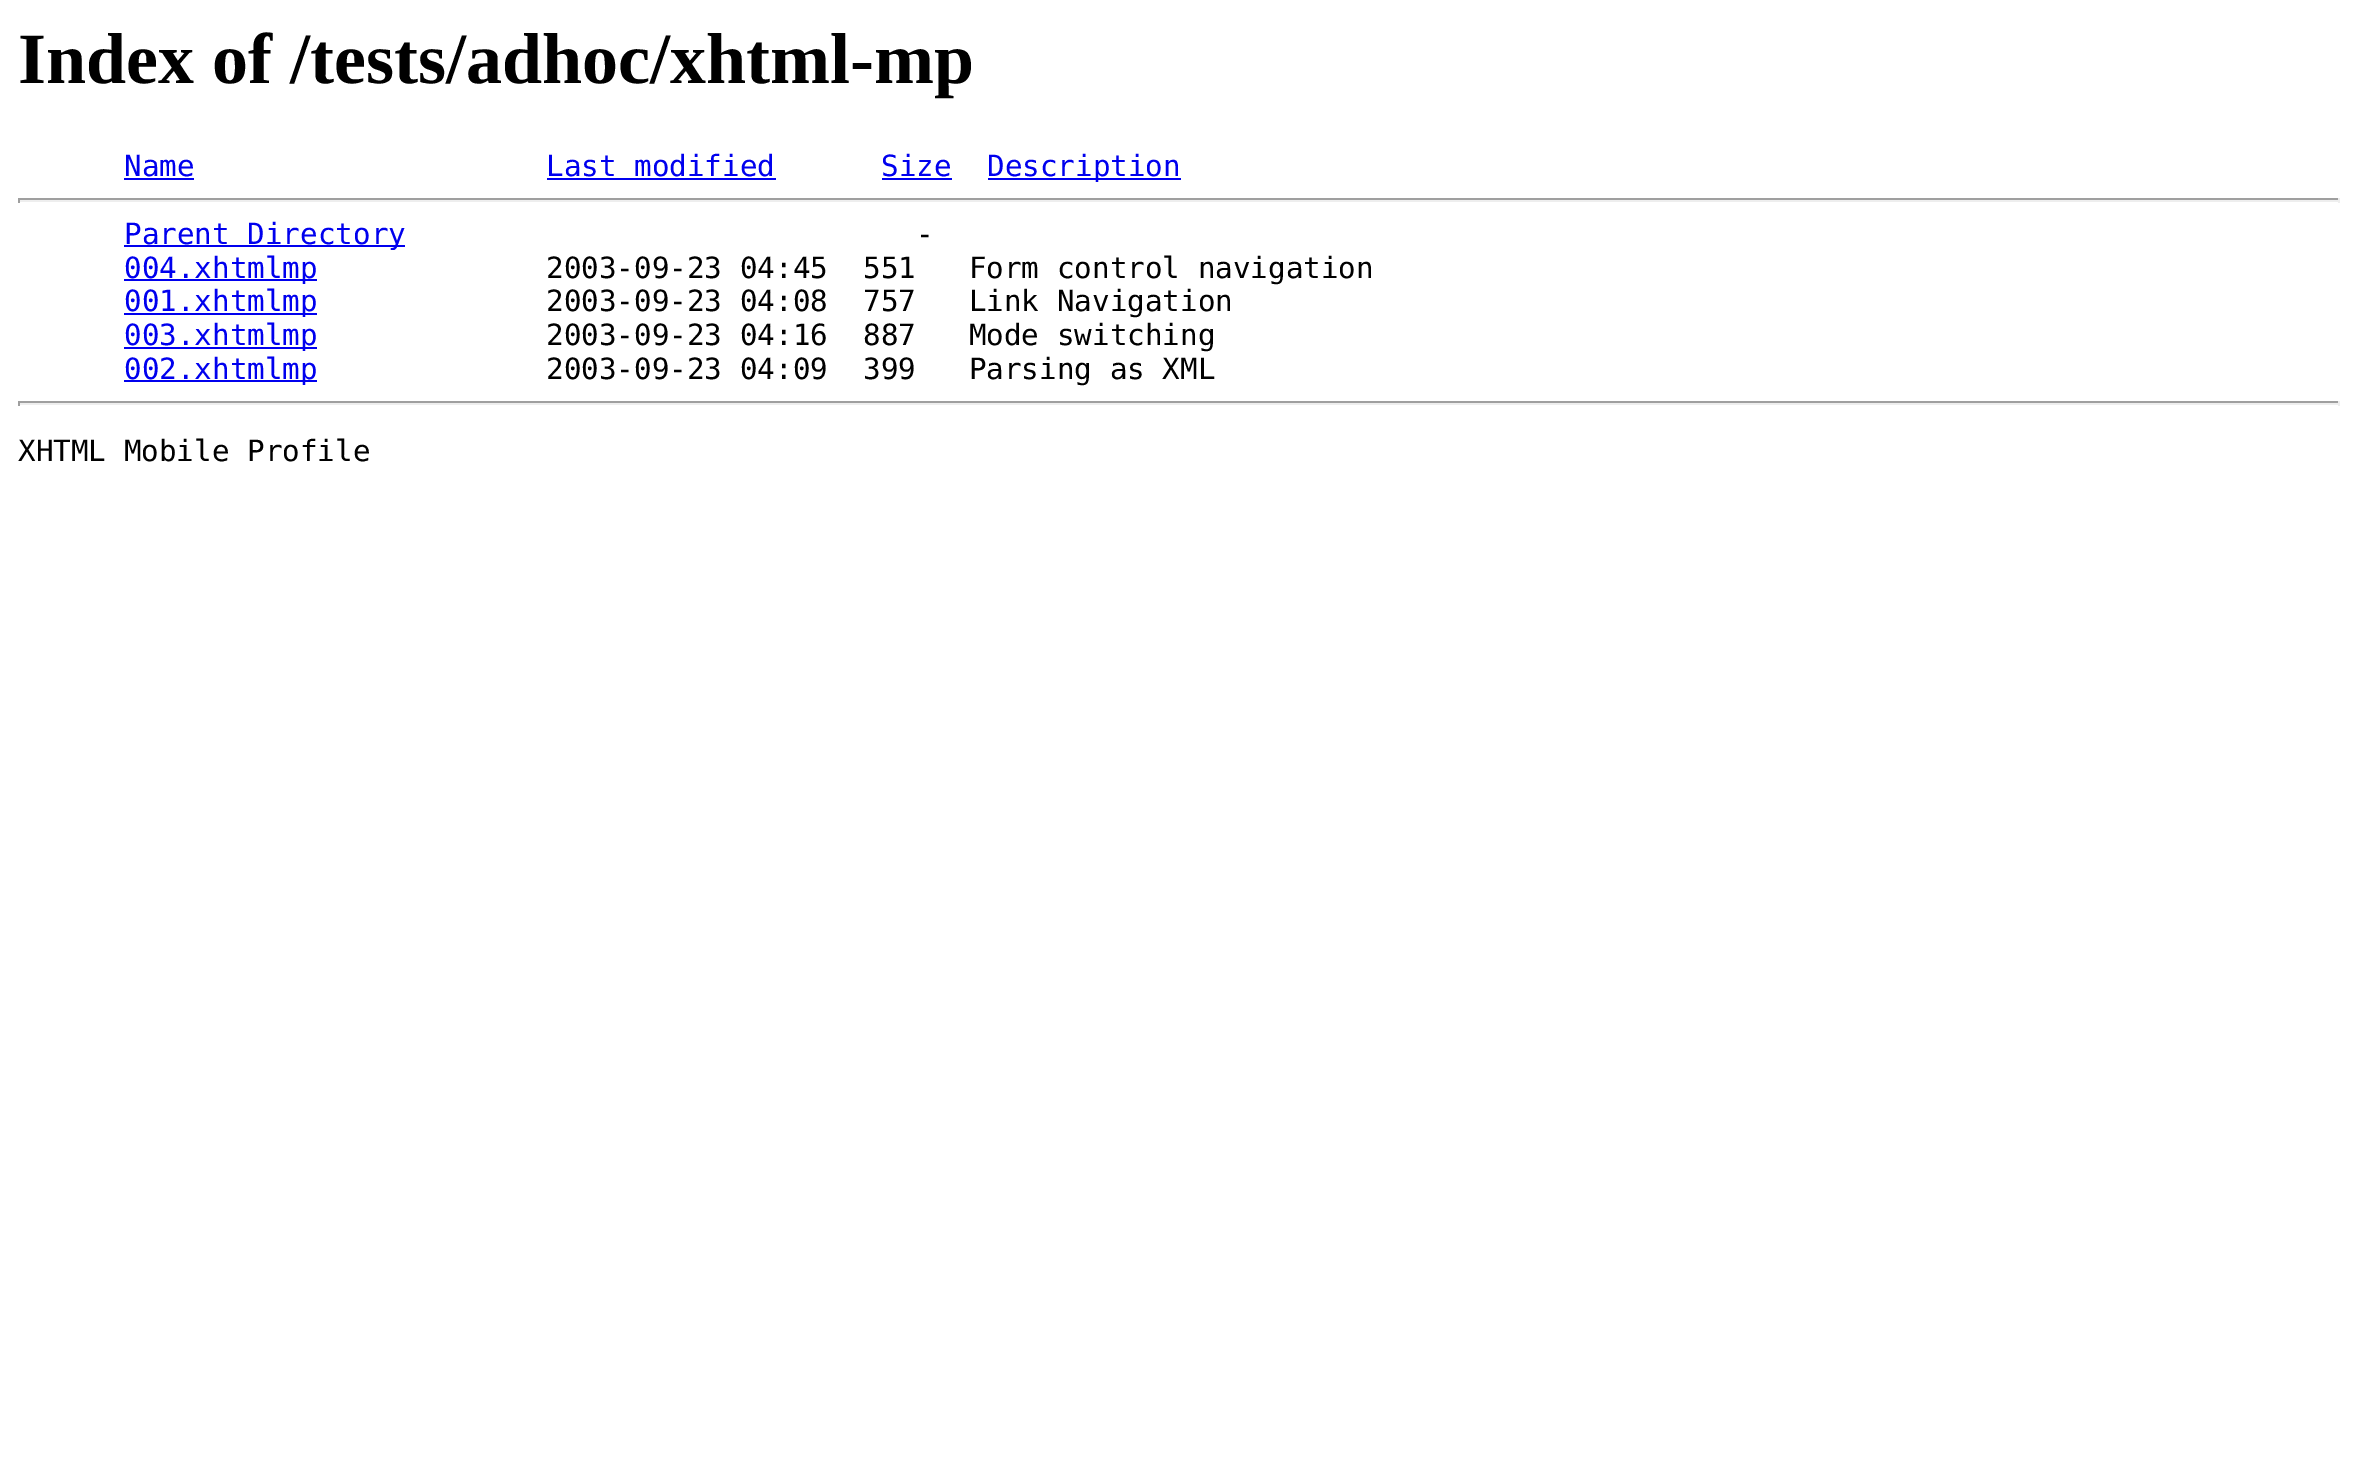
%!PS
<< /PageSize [2358 1478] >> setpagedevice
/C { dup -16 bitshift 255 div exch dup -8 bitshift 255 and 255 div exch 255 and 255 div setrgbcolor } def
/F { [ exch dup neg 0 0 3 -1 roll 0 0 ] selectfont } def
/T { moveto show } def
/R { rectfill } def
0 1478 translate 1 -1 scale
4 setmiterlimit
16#FFFFFF C
0 0 2358 1478 R
/LiberationSerif-Bold 72 F
16#000000 C
(Index of /tests/adhoc/xhtml-mp) 18 83 T
/DejaVuSansMono-Regular 29.25 F
16#0000EE C
(Name) 124 176 T
124 178 70 2 R
(Last modified) 546 176 T
547 178 229 2 R
(Size) 881 176 T
882 178 70 2 R
988 178 193 2 R
(Description) 987 176 T
16#9F9F9F C
18 198 2322 2 R
16#EEEEEE C
2338 198 2 5 R
18 200 2322 2 R
16#9F9F9F C
18 198 2 5 R
16#0000EE C
124 245 281 2 R
(Parent Directory) 124 244 T
16#000000 C
(-) 916 244 T
16#0000EE C
124 279 193 2 R
(004.xhtmlmp) 124 278 T
16#000000 C
(2003-09-23 04:45  551   Form control navigation) 546 278 T
16#0000EE C
124 313 193 2 R
(001.xhtmlmp) 124 311 T
16#000000 C
(2003-09-23 04:08  757   Link Navigation) 546 311 T
16#0000EE C
124 347 193 2 R
(003.xhtmlmp) 124 345 T
16#000000 C
(2003-09-23 04:16  887   Mode switching) 546 345 T
16#0000EE C
124 380 193 2 R
(002.xhtmlmp) 124 379 T
16#000000 C
(2003-09-23 04:09  399   Parsing as XML) 546 379 T
16#9F9F9F C
18 401 2322 2 R
16#EEEEEE C
2338 401 2 5 R
18 403 2322 2 R
16#9F9F9F C
18 401 2 5 R
16#000000 C
(XHTML Mobile Profile) 18 461 T
showpage
